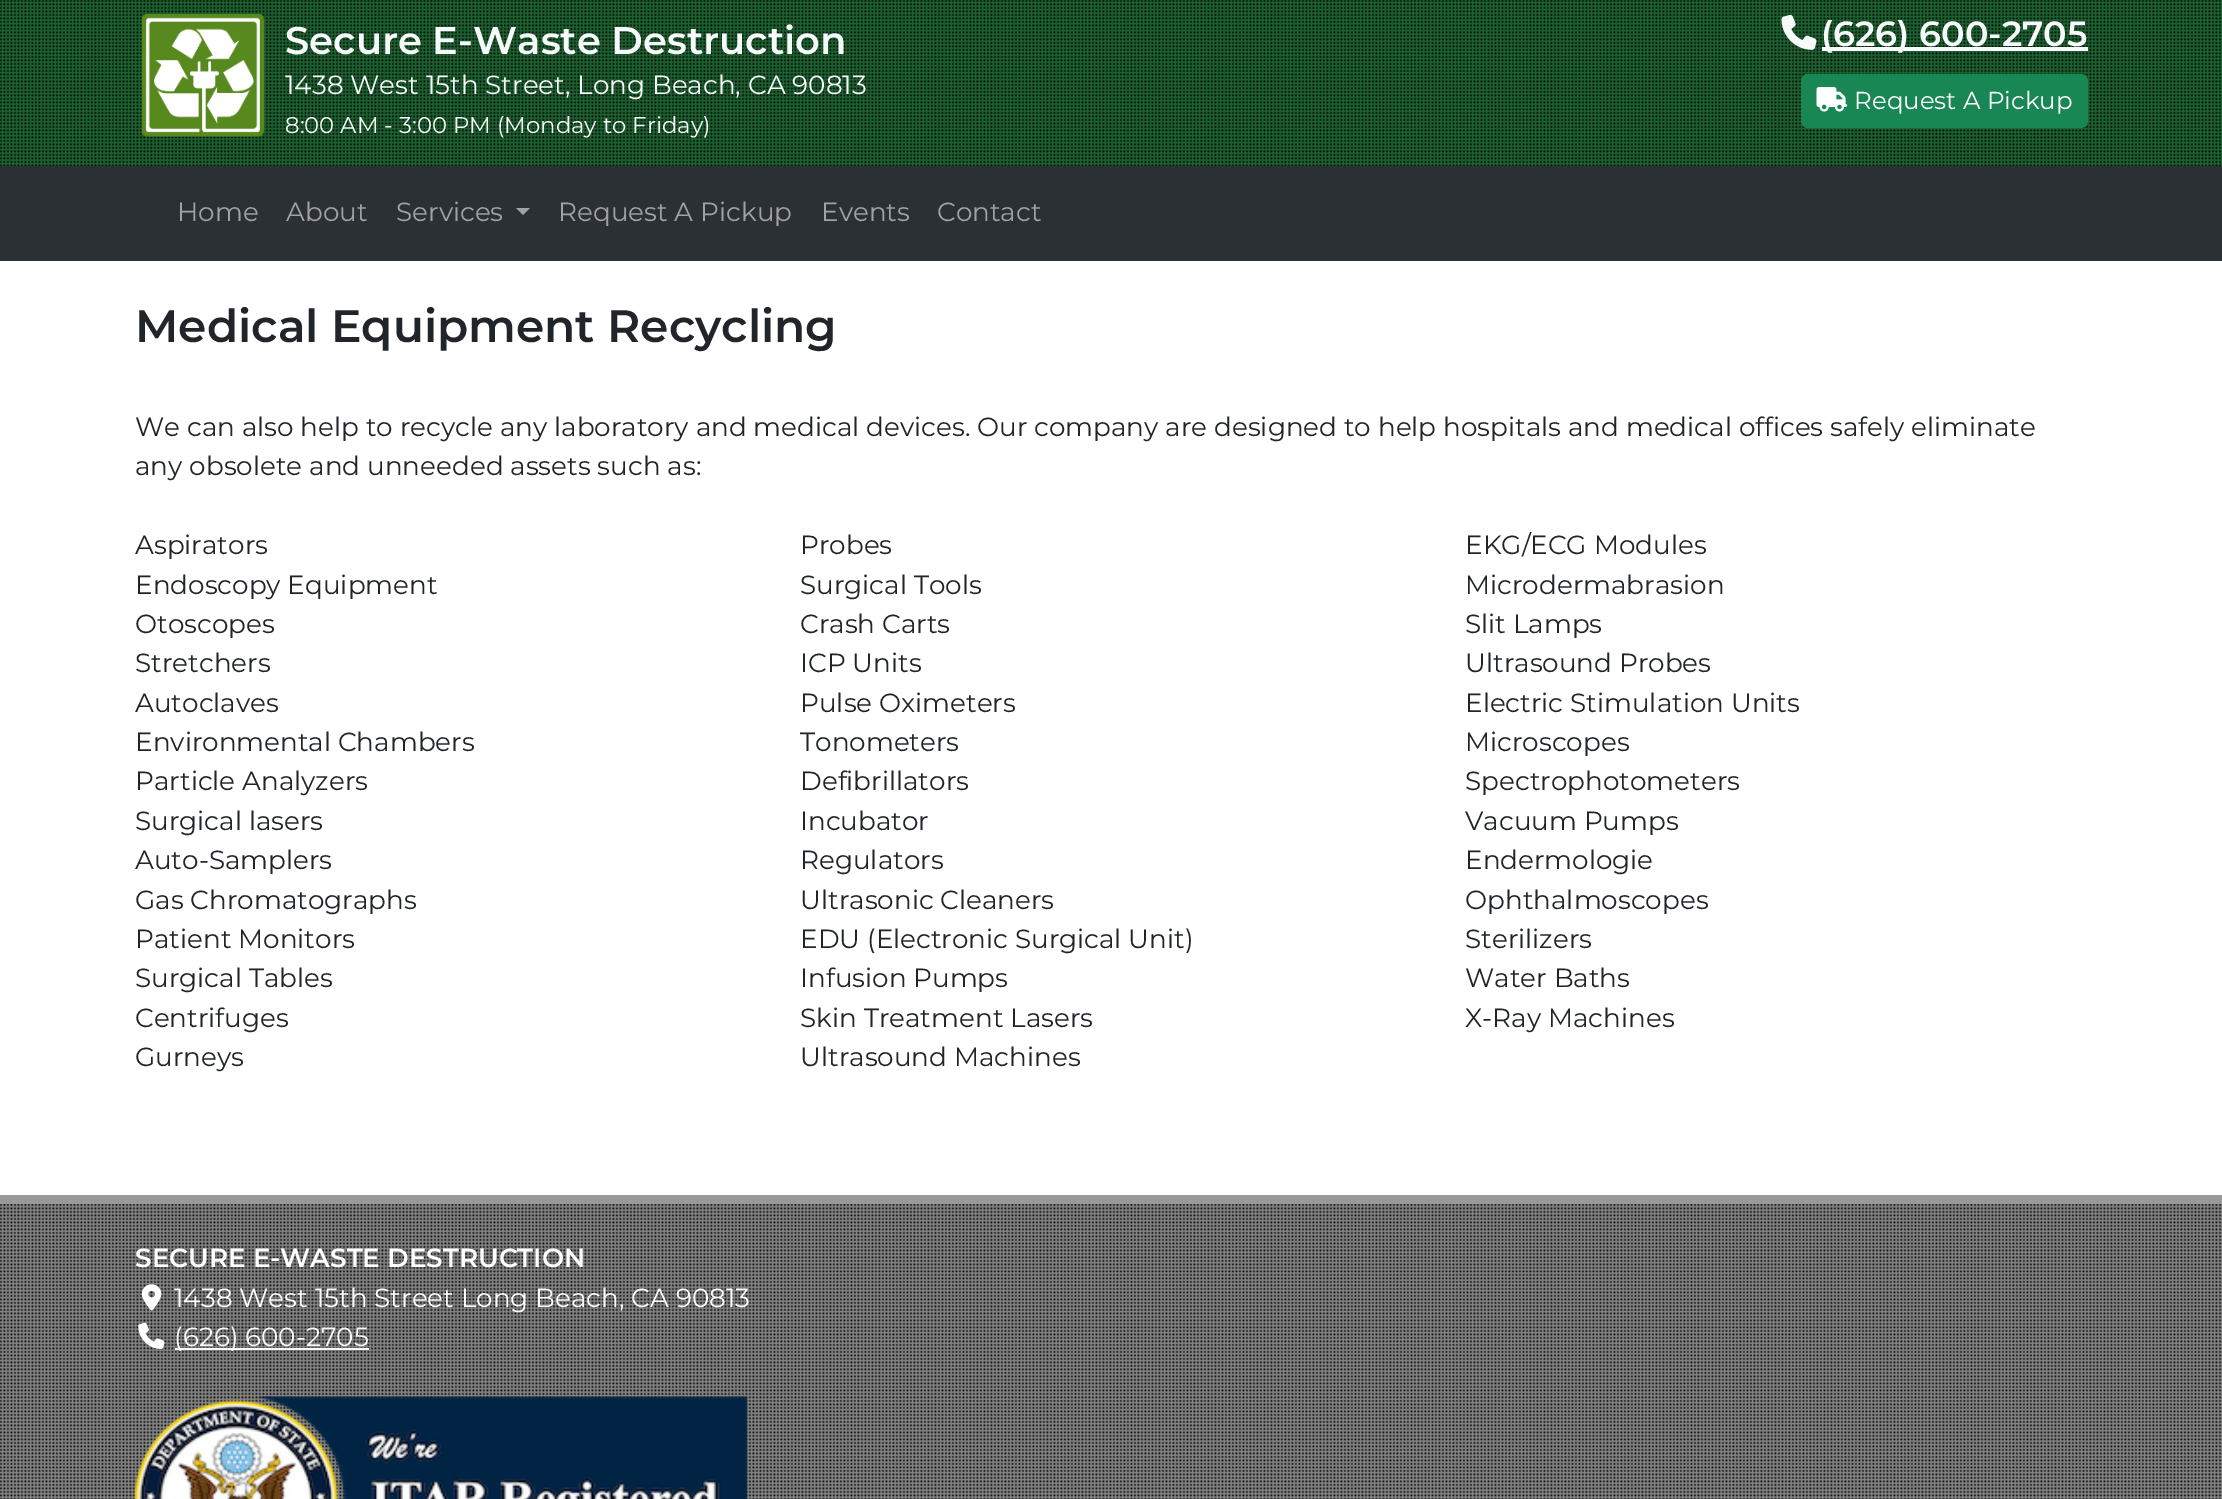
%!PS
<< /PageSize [2222 1499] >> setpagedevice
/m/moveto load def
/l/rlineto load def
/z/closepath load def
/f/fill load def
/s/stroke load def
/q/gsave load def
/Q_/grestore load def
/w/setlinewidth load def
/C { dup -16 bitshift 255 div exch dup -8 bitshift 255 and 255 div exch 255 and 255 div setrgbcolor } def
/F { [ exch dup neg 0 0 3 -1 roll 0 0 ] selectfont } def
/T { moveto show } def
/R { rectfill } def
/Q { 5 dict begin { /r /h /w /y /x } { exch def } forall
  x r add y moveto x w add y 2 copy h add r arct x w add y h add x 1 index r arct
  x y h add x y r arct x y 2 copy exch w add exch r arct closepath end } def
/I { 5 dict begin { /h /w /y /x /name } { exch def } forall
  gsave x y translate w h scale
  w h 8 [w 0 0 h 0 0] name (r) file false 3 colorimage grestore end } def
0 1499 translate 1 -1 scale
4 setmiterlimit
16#1F6633 C
0 0 2222 1499 R
(1.rgb) 0 0 2222 166 I
(2.rgb) 141 14 124 123 I
/Montserrat-SemiBold 38.5 F
16#F8F9FA C
(Secure E-Waste Destruction) 285 54 T
/Montserrat-Regular 26.25 F
(1438 West 15th Street, Long Beach, CA 90813) 285 94 T
/Montserrat-Regular 22.75 F
(8:00 AM - 3:00 PM \(Monday to Friday\)) 285 133 T
(3.rgb) 1781 14 36 36 I
1822 47 266 4 R
/Montserrat-SemiBold 35 F
(\(626\) 600-2705) 1821 46 T
16#198754 C
1802 75 285 52 6 Q q f Q_
2 w
s
(4.rgb) 1816 87 32 25 I
/Montserrat-Regular 24.5 F
16#FFFFFF C
(Request A Pickup) 1854 109 T
16#2B3035 C
0 166 2222 95 R
/Montserrat-Regular 26.25 F
16#A0A2A4 C
(Home) 177 221 T
(About) 286 221 T
(Services) 396 221 T
516 208 m 14 0 l -7 7 l z f
(Request A Pickup) 558 221 T
(Events) 821 221 T
(Contact) 937 221 T
16#FFFFFF C
0 261 2222 934 R
/Montserrat-SemiBold 45.5 F
16#212529 C
(Medical Equipment Recycling) 135 342 T
/Montserrat-Regular 26.25 F
(We can also help to recycle any laboratory and medical devices. Our company are designed to help hospitals and medical offices safely eliminate) 135 436 T
(any obsolete and unneeded assets such as:) 135 475 T
(Aspirators) 135 554 T
(Endoscopy Equipment) 135 594 T
(Otoscopes) 135 633 T
(Stretchers) 135 672 T
(Autoclaves) 135 712 T
(Environmental Chambers) 135 751 T
(Particle Analyzers) 135 790 T
(Surgical lasers) 135 830 T
(Auto-Samplers) 135 869 T
(Gas Chromatographs) 135 909 T
(Patient Monitors) 135 948 T
(Surgical Tables) 135 987 T
(Centrifuges) 135 1027 T
(Gurneys) 135 1066 T
(Probes) 800 554 T
(Surgical Tools) 800 594 T
(Crash Carts) 800 633 T
(ICP Units) 800 672 T
(Pulse Oximeters) 800 712 T
(Tonometers) 800 751 T
(Defibrillators) 800 790 T
(Incubator) 800 830 T
(Regulators) 800 869 T
(Ultrasonic Cleaners) 800 909 T
(EDU \(Electronic Surgical Unit\)) 800 948 T
(Infusion Pumps) 800 987 T
(Skin Treatment Lasers) 800 1027 T
(Ultrasound Machines) 800 1066 T
(EKG/ECG Modules) 1465 554 T
(Microdermabrasion) 1465 594 T
(Slit Lamps) 1465 633 T
(Ultrasound Probes) 1465 672 T
(Electric Stimulation Units) 1465 712 T
(Microscopes) 1465 751 T
(Spectrophotometers) 1465 790 T
(Vacuum Pumps) 1465 830 T
(Endermologie) 1465 869 T
(Ophthalmoscopes) 1465 909 T
(Sterilizers) 1465 948 T
(Water Baths) 1465 987 T
(X-Ray Machines) 1465 1027 T
16#888888 C
0 1204 2222 295 R
(5.rgb) 0 1204 2222 295 I
16#999999 C
0 1195 2222 9 R
/Montserrat-SemiBold 26.25 F
16#FFFFFF C
(SECURE E-WASTE DESTRUCTION) 135 1267 T
(6.rgb) 141 1284 21 27 I
/Montserrat-Regular 26.25 F
(1438 West 15th Street Long Beach, CA 90813) 174 1307 T
(7.rgb) 138 1322 27 27 I
16#F8F9FA C
175 1348 194 2 R
(\(626\) 600-2705) 174 1346 T
(8.rgb) 134 1396 614 103 I
showpage
